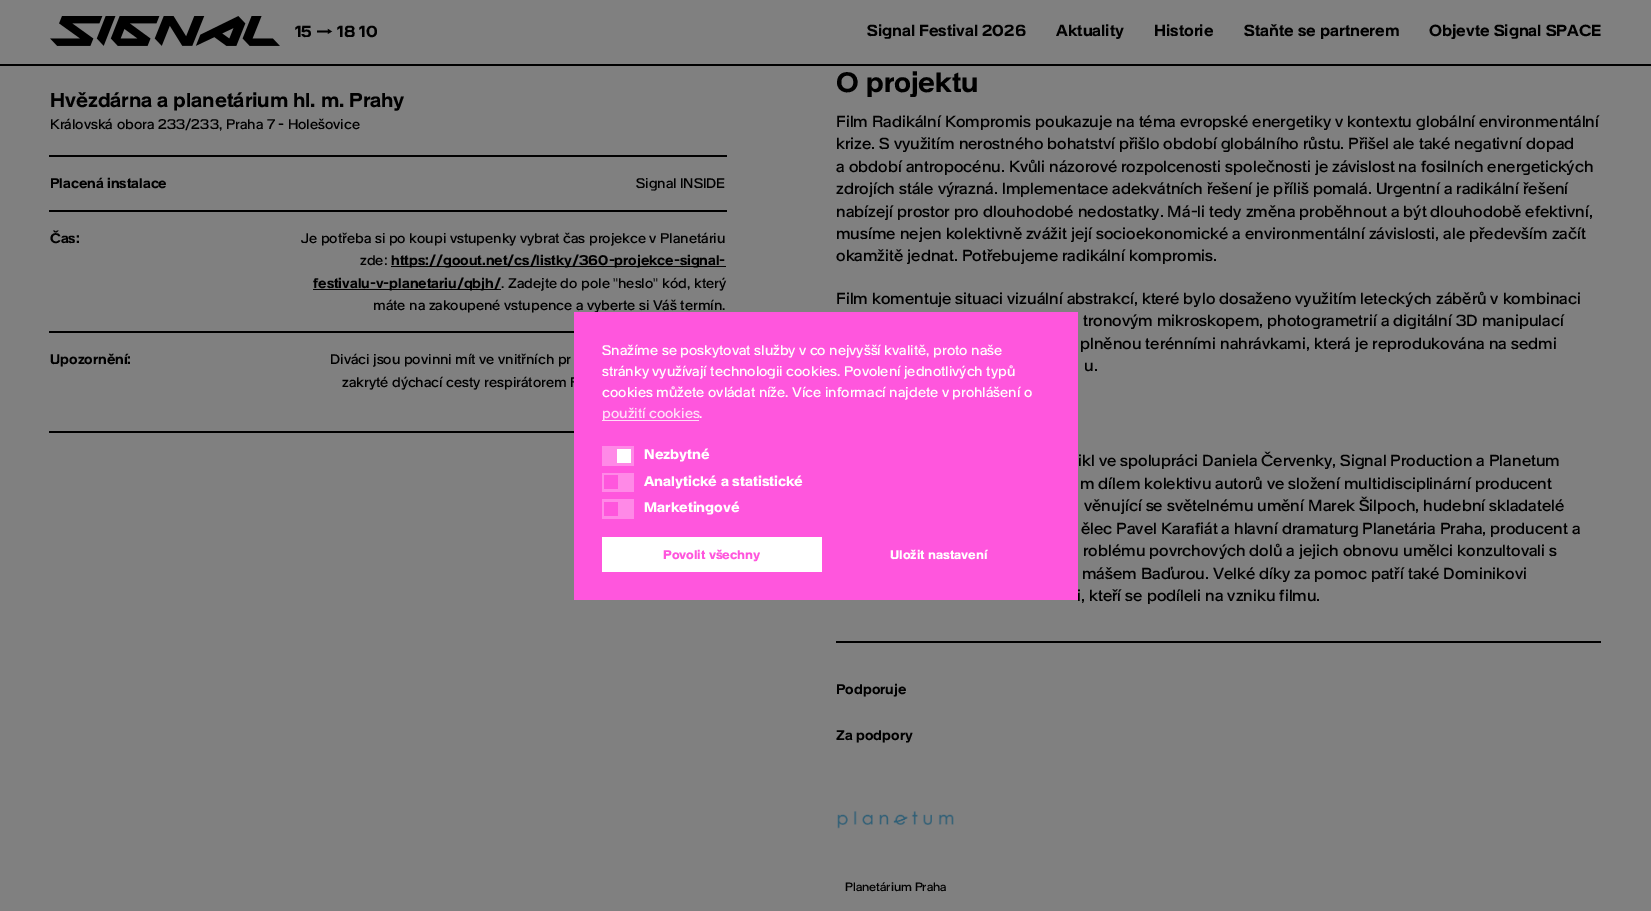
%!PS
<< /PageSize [1651 911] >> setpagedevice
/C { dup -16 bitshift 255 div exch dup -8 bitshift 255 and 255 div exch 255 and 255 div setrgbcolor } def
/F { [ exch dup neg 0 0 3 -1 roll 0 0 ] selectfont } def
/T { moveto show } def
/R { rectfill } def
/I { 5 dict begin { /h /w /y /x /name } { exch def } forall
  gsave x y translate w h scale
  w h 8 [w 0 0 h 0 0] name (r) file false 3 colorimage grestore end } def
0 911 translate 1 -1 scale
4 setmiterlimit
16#808080 C
0 0 1651 911 R
16#000000 C
0 64 1651 2 R
(1.rgb) 50 16 230 30 I
/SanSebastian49-SemiBold 16 F
(15 → 18 10) 295 37 T
(Signal Festival 2026) 867 36 T
(Aktuality) 1056 36 T
(Historie) 1154 36 T
(Staňte se partnerem) 1244 36 T
(Objevte Signal SPACE) 1429 36 T
/SanSebastian49-SemiBold 20 F
(Hvězdárna a planetárium hl. m. Prahy) 50 107 T
/SanSebastian49-Regular 14 F
(Královská obora 233/233, Praha 7 - Holešovice) 50 129 T
49 155 678 2 R
49 210 678 2 R
/SanSebastian49-SemiBold 14 F
(Placená instalace) 50 188 T
/SanSebastian49-Regular 14 F
(Signal INSIDE) 636 188 T
49 331 525 2 R
/SanSebastian49-SemiBold 14 F
(Čas:) 50 243 T
/SanSebastian49-Regular 14 F
(Je potřeba si po koupi vstupenky vybrat čas projekce v Planetáriu) 301 243 T
(zde:) 360 265 T
391 266 335 1 R
/SanSebastian49-SemiBold 14 F
(https://goout.net/cs/listky/360-projekce-signal-) 391 265 T
313 289 188 1 R
(festivalu-v-planetariu/qbjh/) 313 288 T
/SanSebastian49-Regular 14 F
(. Zadejte do pole) 501 288 T
/LiberationSans-Regular 14 F
(") 613 288 T
/SanSebastian49-Regular 14 F
(heslo) 618 288 T
/LiberationSans-Regular 14 F
(") 653 288 T
/SanSebastian49-Regular 14 F
(kód, který) 662 288 T
(máte na zakoupené vstupence a) 373 310 T
(vyberte si Váš termín.) 587 310 T
49 431 525 2 R
/SanSebastian49-SemiBold 14 F
(Upozornění:) 50 364 T
/SanSebastian49-Regular 14 F
(Diváci jsou povinni mít ve vnitřních pr) 330 364 T
(zakryté dýchací cesty respirátorem F) 342 387 T
/SanSebastian49-SemiBold 28 F
(O projektu) 836 92 T
/SanSebastian49-Regular 16 F
(Film Radikální Kompromis poukazuje na téma evropské energetiky v kontextu globální environmentální) 836 127 T
(krize. S využitím nerostného bohatství přišlo období globálního růstu. Přišel ale také negativní dopad) 836 149 T
(a období antropocénu. Kvůli názorové rozpolcenosti společnosti je závislost na fosilních energetických) 836 172 T
(zdrojích stále výrazná. Implementace adekvátních řešení je příliš pomalá. Urgentní a radikální řešení) 836 194 T
(nabízejí prostor pro dlouhodobé nedostatky. Má-li tedy změna proběhnout a být dlouhodobě efektivní,) 836 217 T
(musíme nejen kolektivně zvážit její socioekonomické a environmentální závislosti, ale především začít) 836 239 T
(okamžitě jednat. Potřebujeme radikální kompromis.) 836 261 T
(Film komentuje situaci vizuální abstrakcí, které bylo dosaženo využitím leteckých záběrů v kombinaci) 836 304 T
(tronovým mikroskopem, photogrametrií a digitální 3D manipulací) 1083 326 T
(plněnou terénními nahrávkami, která je reprodukována na sedmi) 1080 349 T
(u.) 1084 371 T
(ikl ve spolupráci Daniela Červenky, Signal Production a Planetum) 1078 466 T
(m dílem kolektivu autorů ve složení multidisciplinární producent) 1080 489 T
(věnující se světelnému umění Marek Šilpoch, hudební skladatelé) 1084 511 T
(ělec Pavel Karafiát a hlavní dramaturg Planetária Praha, producent a) 1081 534 T
(roblému povrchových dolů a jejich obnovu umělci konzultovali s) 1083 556 T
(mášem Baďurou. Velké díky za pomoc patří také Dominikovi) 1082 579 T
(i, kteří se podíleli na vzniku filmu.) 1077 601 T
836 641 765 2 R
/SanSebastian49-SemiBold 14 F
(Podporuje) 836 694 T
(Za podpory) 836 740 T
(2.rgb) 837 811 117 18 I
/SanSebastian49-Regular 12 F
(Planetárium Praha) 845 891 T
16#FF56DD C
574 312 504 288 R
/SanSebastian49-Regular 14 F
16#FFFFFF C
(Snažíme se poskytovat služby v co nejvyšší kvalitě, proto naše) 602 355 T
(stránky využívají technologii cookies. Povolení jednotlivých typů) 602 376 T
(cookies můžete ovládat níže. Více informací najdete v prohlášení o) 602 397 T
16#FFDDF8 C
602 420 97 1 R
(použití cookies) 602 418 T
16#FFFFFF C
(.) 699 418 T
16#FF89E7 C
602 446 32 20 R
16#FFFFFF C
617 449 14 14 R
/SanSebastian49-Bold 14 F
(Nezbytné) 644 459 T
16#FF89E7 C
602 473 32 19 R
16#FF56DD C
604 475 14 14 R
16#FFFFFF C
(Analytické a statistické) 644 486 T
16#FF89E7 C
602 499 32 20 R
16#FF56DD C
604 502 14 14 R
16#FFFFFF C
(Marketingové) 644 512 T
602 537 220 35 R
/SanSebastian49-Bold 12.5 F
16#FF56DD C
(Povolit všechny) 663 559 T
16#FFFFFF C
(Uložit nastavení) 890 559 T
showpage
